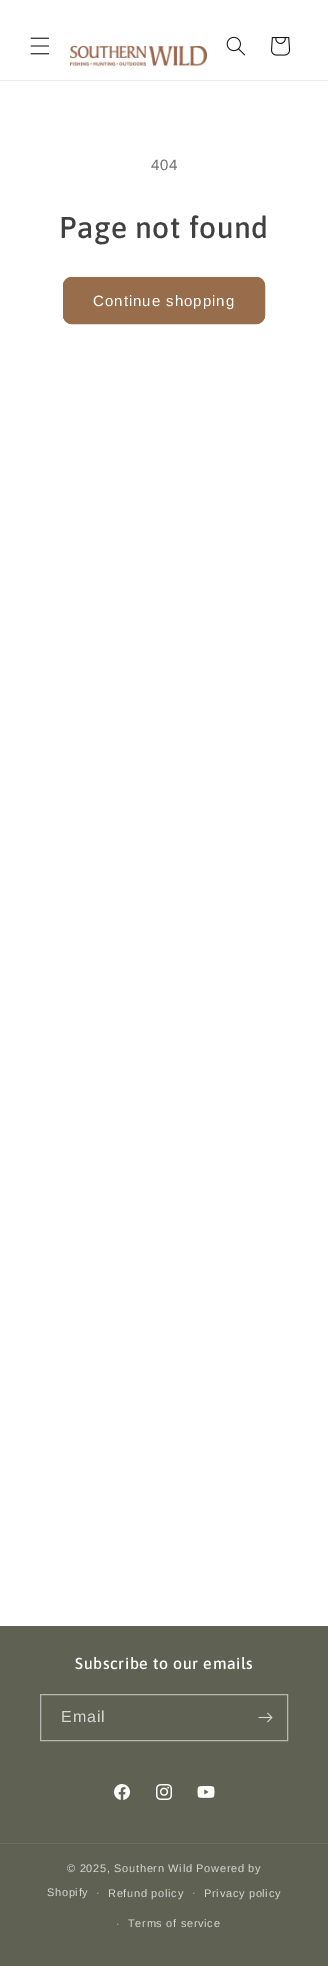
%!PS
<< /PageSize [328 1966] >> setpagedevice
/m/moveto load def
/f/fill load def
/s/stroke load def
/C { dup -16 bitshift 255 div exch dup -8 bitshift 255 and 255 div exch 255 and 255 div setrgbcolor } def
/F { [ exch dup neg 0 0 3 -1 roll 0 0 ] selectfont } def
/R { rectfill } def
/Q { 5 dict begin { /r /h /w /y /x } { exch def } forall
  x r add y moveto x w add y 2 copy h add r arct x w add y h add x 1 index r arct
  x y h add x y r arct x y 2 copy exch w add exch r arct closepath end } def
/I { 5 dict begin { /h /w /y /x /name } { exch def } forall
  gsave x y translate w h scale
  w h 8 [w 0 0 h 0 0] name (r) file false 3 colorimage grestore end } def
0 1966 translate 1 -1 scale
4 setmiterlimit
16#FFFFFF C
0 0 328 1966 R
16#ECECEC C
0 80 328 1 R
(1.rgb) 30 37 20 18 I
(2.rgb) 70 45 137 22 I
(3.rgb) 226 36 19 20 I
(4.rgb) 271 37 20 19 I
/LiberationSans-Regular 15 F
16#707070 C
151 170 m .6 0 (404) ashow
/Asap-Medium 30 F
16#404040 C
59 238 m .6 0 (Page not found) ashow
16#986D4B C
63 277 202 47 9 Q f
63.5 277.5 201 46 8.5 Q s
/LiberationSans-Regular 15 F
16#FFFFFF C
93 306 m 1 0 (Continue shopping) ashow
16#5F6153 C
0 1626 328 340 R
/Asap-Medium 16 F
16#FFFFFF C
75 1669 m .6 0 (Subscribe to our emails) ashow
16#B7B8B2 C
40.5 1694.5 247 46 rectstroke
/LiberationSans-Regular 16 F
16#D7D8D4 C
61 1722 m 1 0 (Email) ashow
(5.rgb) 258 1712 15 11 I
(6.rgb) 114 1784 16 16 I
(7.rgb) 156 1784 16 16 I
(8.rgb) 197 1786 18 12 I
16#6C6E61 C
0 1843 328 1 R
/LiberationSans-Regular 11 F
16#D7D8D4 C
67 1872 m .7 0 (© 2025, Southern Wild Powered by) ashow
47 1896 m .7 0 (Shopify) ashow
/LiberationSans-Regular 10 F
96 1896 m .7 0 (·) ashow
/LiberationSans-Regular 11 F
108 1897 m .7 0 (Refund policy) ashow
/LiberationSans-Regular 10 F
192 1896 m .7 0 (·) ashow
/LiberationSans-Regular 11 F
204 1897 m .7 0 (Privacy policy) ashow
/LiberationSans-Regular 10 F
116 1927 m .7 0 (·) ashow
/LiberationSans-Regular 11 F
128 1927 m .7 0 (Terms of service) ashow
showpage
